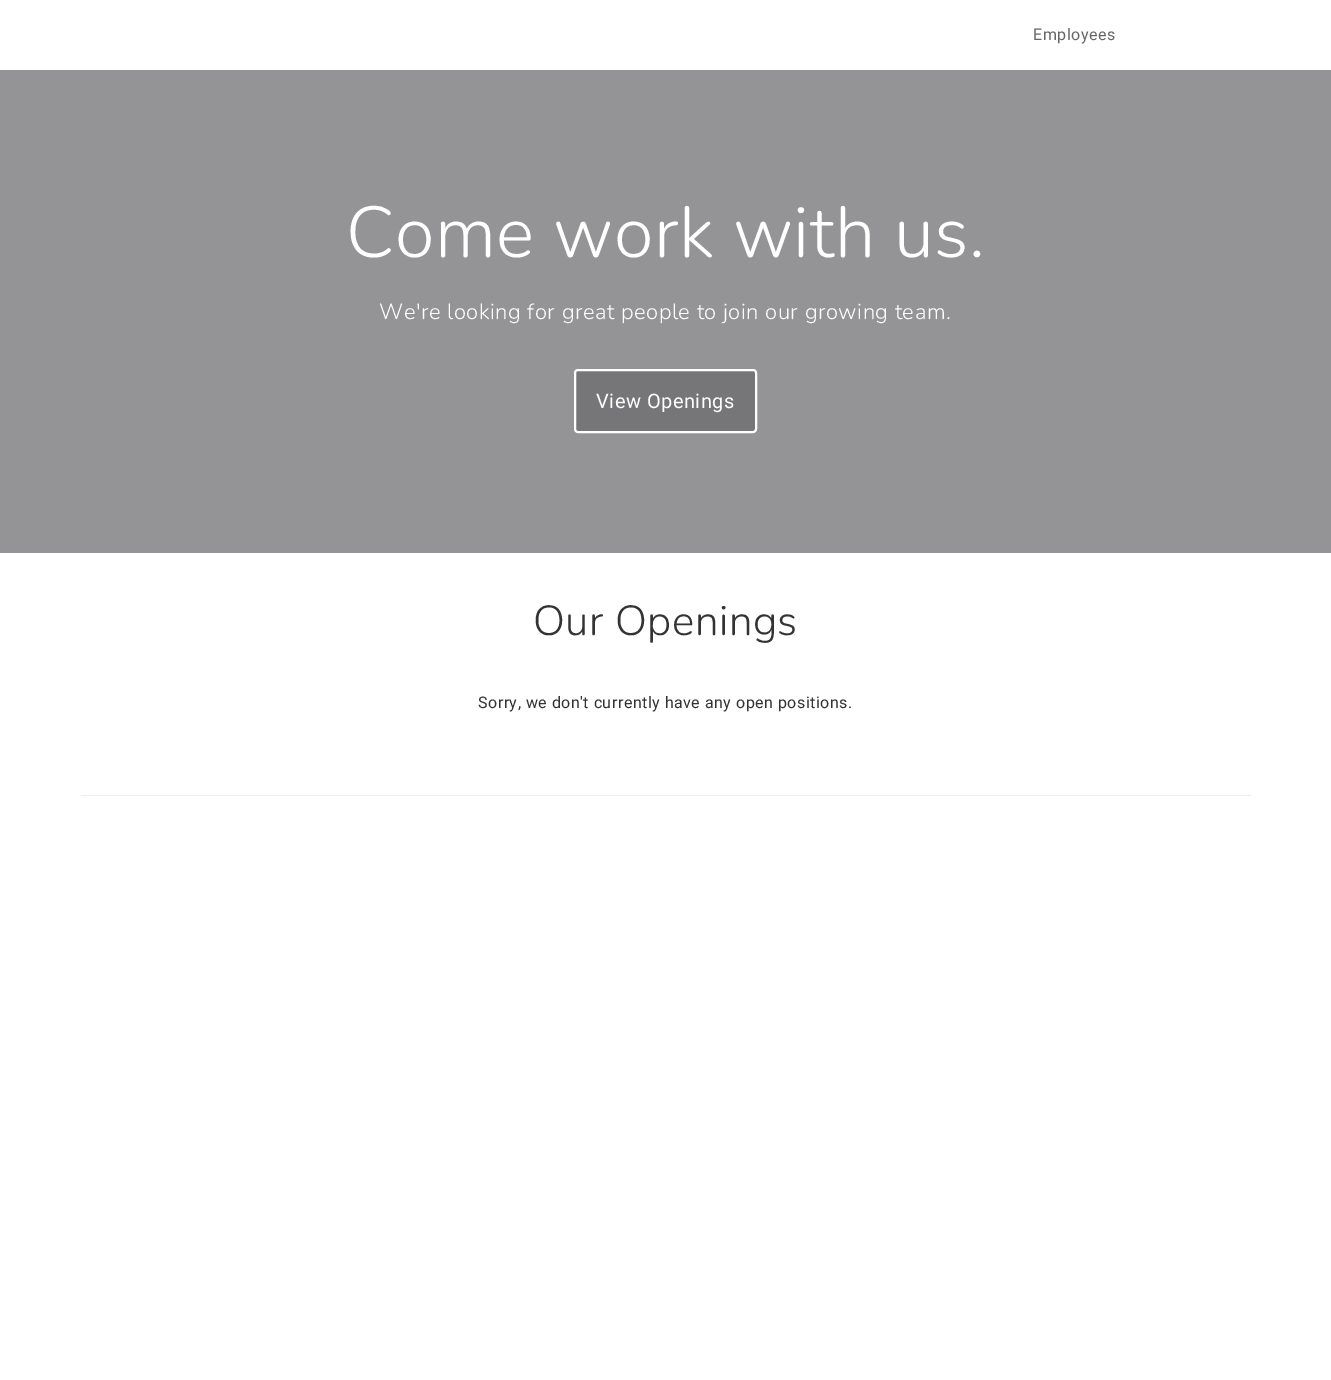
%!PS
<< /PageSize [1331 1380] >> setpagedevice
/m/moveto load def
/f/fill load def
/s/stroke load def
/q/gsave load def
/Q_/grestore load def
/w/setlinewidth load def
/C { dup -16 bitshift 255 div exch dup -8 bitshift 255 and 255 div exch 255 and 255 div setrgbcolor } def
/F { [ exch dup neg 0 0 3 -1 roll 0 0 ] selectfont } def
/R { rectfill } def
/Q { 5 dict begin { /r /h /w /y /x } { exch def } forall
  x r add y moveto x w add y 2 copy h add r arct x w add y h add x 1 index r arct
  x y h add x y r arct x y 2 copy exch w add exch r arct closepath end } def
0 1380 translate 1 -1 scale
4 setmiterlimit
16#FFFFFF C
0 0 1331 1380 R
/Roboto-Regular 16 F
16#666666 C
1033 40 m .5 0 (Employees) ashow
16#949496 C
0 70 1331 483 R
/Nunito-Light 72 F
16#FFFFFF C
346 257 m .5 0 (Come work with us.) ashow
/Nunito-Light 22 F
379 319 m .5 0 (We're looking for great people to join our growing team.) ashow
16#767678 C
575 370 181 62 3 Q q f Q_
16#FFFFFF C
2 w
s
/Roboto-Regular 20 F
596 408 m .5 0 (View Openings) ashow
16#EEEEEE C
81 795 1170 1 R
/Nunito-Light 42 F
16#333333 C
533 635 m .5 0 (Our Openings) ashow
/Roboto-Regular 16 F
478 708 m .5 0 (Sorry, we don't currently have any open positions.) ashow
showpage
